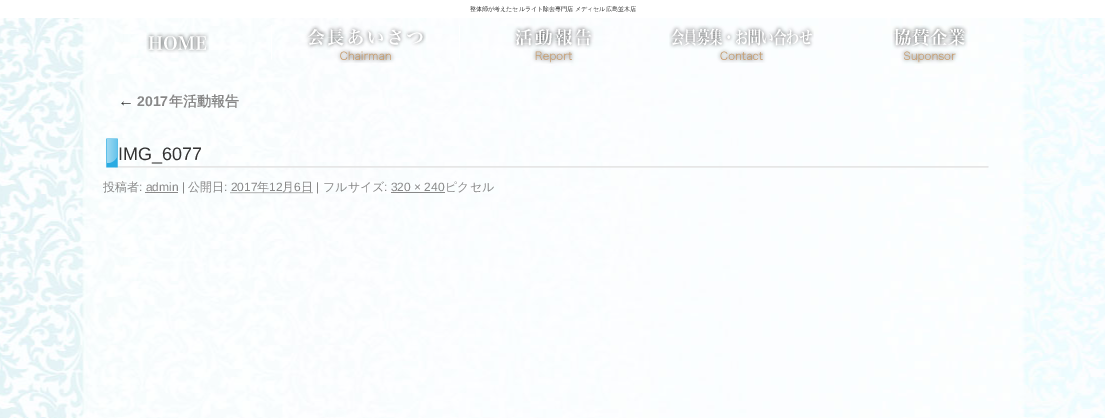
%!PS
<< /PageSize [1105 419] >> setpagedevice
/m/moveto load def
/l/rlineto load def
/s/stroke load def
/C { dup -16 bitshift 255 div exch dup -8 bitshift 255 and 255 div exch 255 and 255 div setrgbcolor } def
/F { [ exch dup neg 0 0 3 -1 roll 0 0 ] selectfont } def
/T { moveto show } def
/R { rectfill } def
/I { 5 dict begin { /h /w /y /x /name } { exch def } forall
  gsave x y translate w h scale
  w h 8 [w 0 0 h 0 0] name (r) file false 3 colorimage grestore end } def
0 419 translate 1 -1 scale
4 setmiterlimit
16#FFFFFF C
0 0 1105 419 R
/WenQuanYiZenHei-Medium 6 F
16#333333 C
(整体師が考えたセルライト除去専門店 メディセル広島並木店) 470 11 T
(1.rgb) 0 18 1105 400 I
(2.rgb) 146 32 63 21 I
(3.rgb) 271 25 155 38 I
(4.rgb) 459 25 135 39 I
(5.rgb) 669 25 145 38 I
(6.rgb) 892 25 76 39 I
/LiberationSerif-Italic 16 F
(←) 118 106 T
/LiberationSans-Bold 14 F
16#888888 C
(2017) 137 106 T
/WenQuanYiZenHei-Bold 14 F
(年活動報告) 169 106 T
(7.rgb) 106 138 883 30 I
/LiberationSans-Regular 18 F
16#333333 C
(IMG_6077) 118 160 T
/WenQuanYiZenHei-Medium 12 F
16#888888 C
(投稿者) 103 191 T
/LiberationSans-Regular 12 F
(: admin |) 139 191 T
/WenQuanYiZenHei-Medium 12 F
(公開日) 188 191 T
/LiberationSans-Regular 12 F
(: 2017) 224 191 T
[1 1] 0 setdash
230.5 192.5 m 82.5 0 l s
/WenQuanYiZenHei-Medium 12 F
(年) 257 191 T
/LiberationSans-Regular 12 F
(12) 269 191 T
/WenQuanYiZenHei-Medium 12 F
(月) 282 191 T
/LiberationSans-Regular 12 F
(6) 294 191 T
/WenQuanYiZenHei-Medium 12 F
(日) 301 191 T
/LiberationSans-Regular 12 F
(|) 316 191 T
/WenQuanYiZenHei-Medium 12 F
(フルサイズ) 323 191 T
/LiberationSans-Regular 12 F
(: 320 × 240) 384 191 T
/WenQuanYiZenHei-Medium 12 F
(ピクセル) 445 191 T
145 192 33 1 R
391 192 54 1 R
showpage
